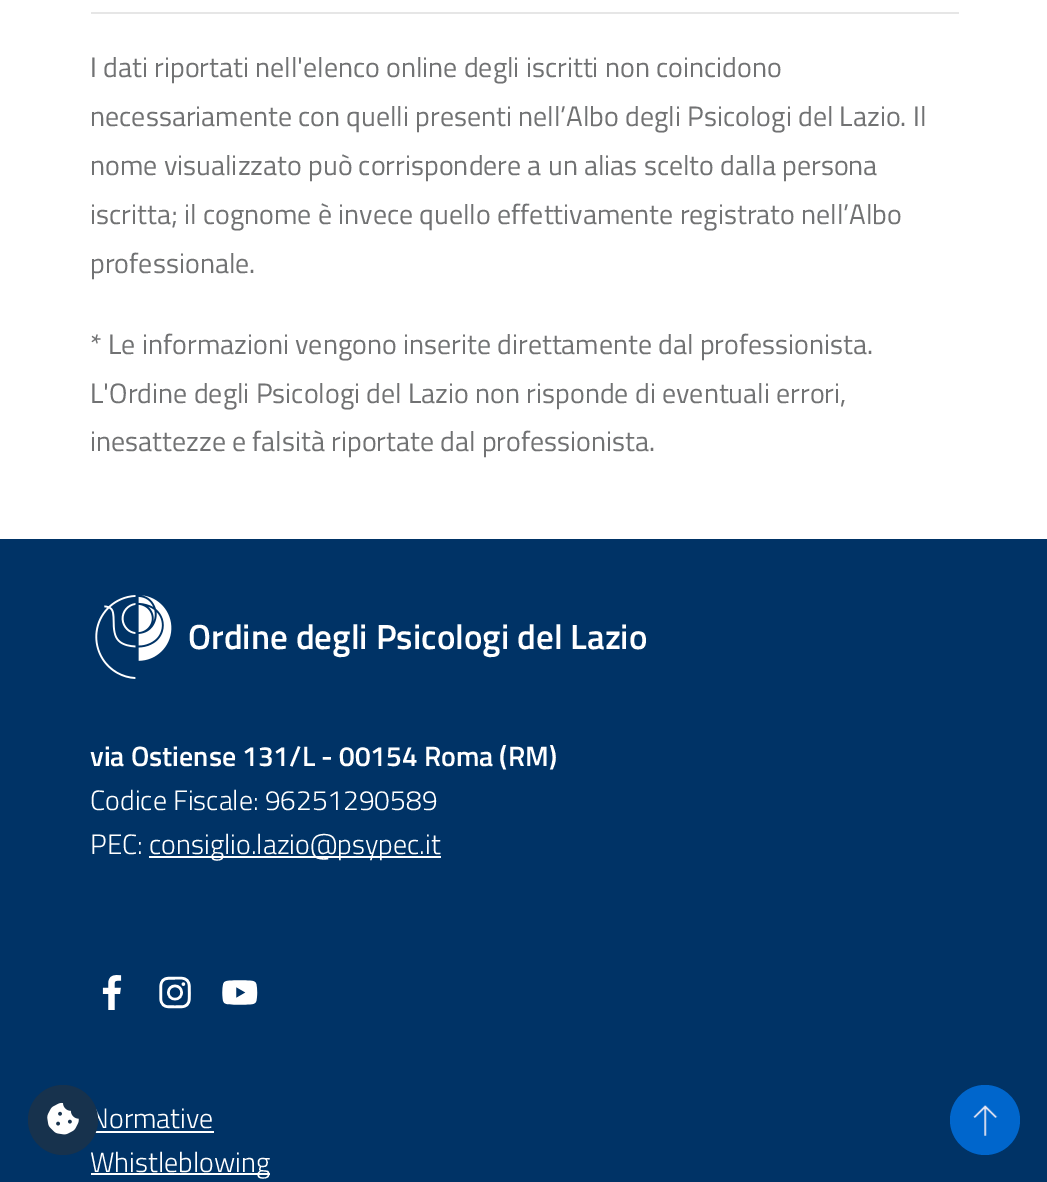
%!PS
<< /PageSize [1047 1182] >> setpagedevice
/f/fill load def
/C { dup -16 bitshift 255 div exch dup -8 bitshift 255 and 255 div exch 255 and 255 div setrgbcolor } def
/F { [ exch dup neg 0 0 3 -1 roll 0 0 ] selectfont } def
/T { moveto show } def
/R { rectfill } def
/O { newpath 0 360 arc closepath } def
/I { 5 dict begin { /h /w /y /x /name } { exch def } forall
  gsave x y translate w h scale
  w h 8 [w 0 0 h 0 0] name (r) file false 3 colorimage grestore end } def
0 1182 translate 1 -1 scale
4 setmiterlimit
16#FFFFFF C
0 0 1047 1182 R
16#E6E6E6 C
91 12 868 2 R
/TitilliumWeb-Regular 28 F
16#717273 C
(I dati riportati nell'elenco online degli iscritti non coincidono) 90 77 T
(necessariamente con quelli presenti nell’Albo degli Psicologi del Lazio. Il) 90 126 T
(nome visualizzato può corrispondere a un alias scelto dalla persona) 90 175 T
(iscritta; il cognome è invece quello effettivamente registrato nell’Albo) 90 224 T
(professionale.) 90 273 T
(* Le informazioni vengono inserite direttamente dal professionista.) 90 354 T
(L'Ordine degli Psicologi del Lazio non risponde di eventuali errori,) 90 403 T
(inesattezze e falsità riportate dal professionista.) 90 451 T
16#003366 C
0 539 1047 643 R
/TitilliumWeb-Light 28 F
16#FFFFFF C
(Normative) 90 1128 T
91 1131 123 2 R
91 1173 179 2 R
(Whistleblowing) 90 1172 T
16#17324D C
63 1120 35 O f
(1.rgb) 47 1102 32 33 I
(2.rgb) 95 595 77 84 I
/TitilliumWeb-SemiBold 35 F
16#FFFFFF C
(Ordine degli Psicologi del Lazio) 188 649 T
/TitilliumWeb-SemiBold 28 F
(via Ostiense 131/L - 00154 Roma \(RM\)) 90 766 T
/TitilliumWeb-Light 28 F
(Codice Fiscale: 96251290589) 90 810 T
(PEC:) 90 854 T
149 856 292 2 R
(consiglio.lazio@psypec.it) 149 854 T
(3.rgb) 102 975 20 35 I
(4.rgb) 159 976 32 33 I
(5.rgb) 222 980 36 25 I
16#0066CC C
985 1120 35 O f
(6.rgb) 973 1105 25 31 I
showpage
